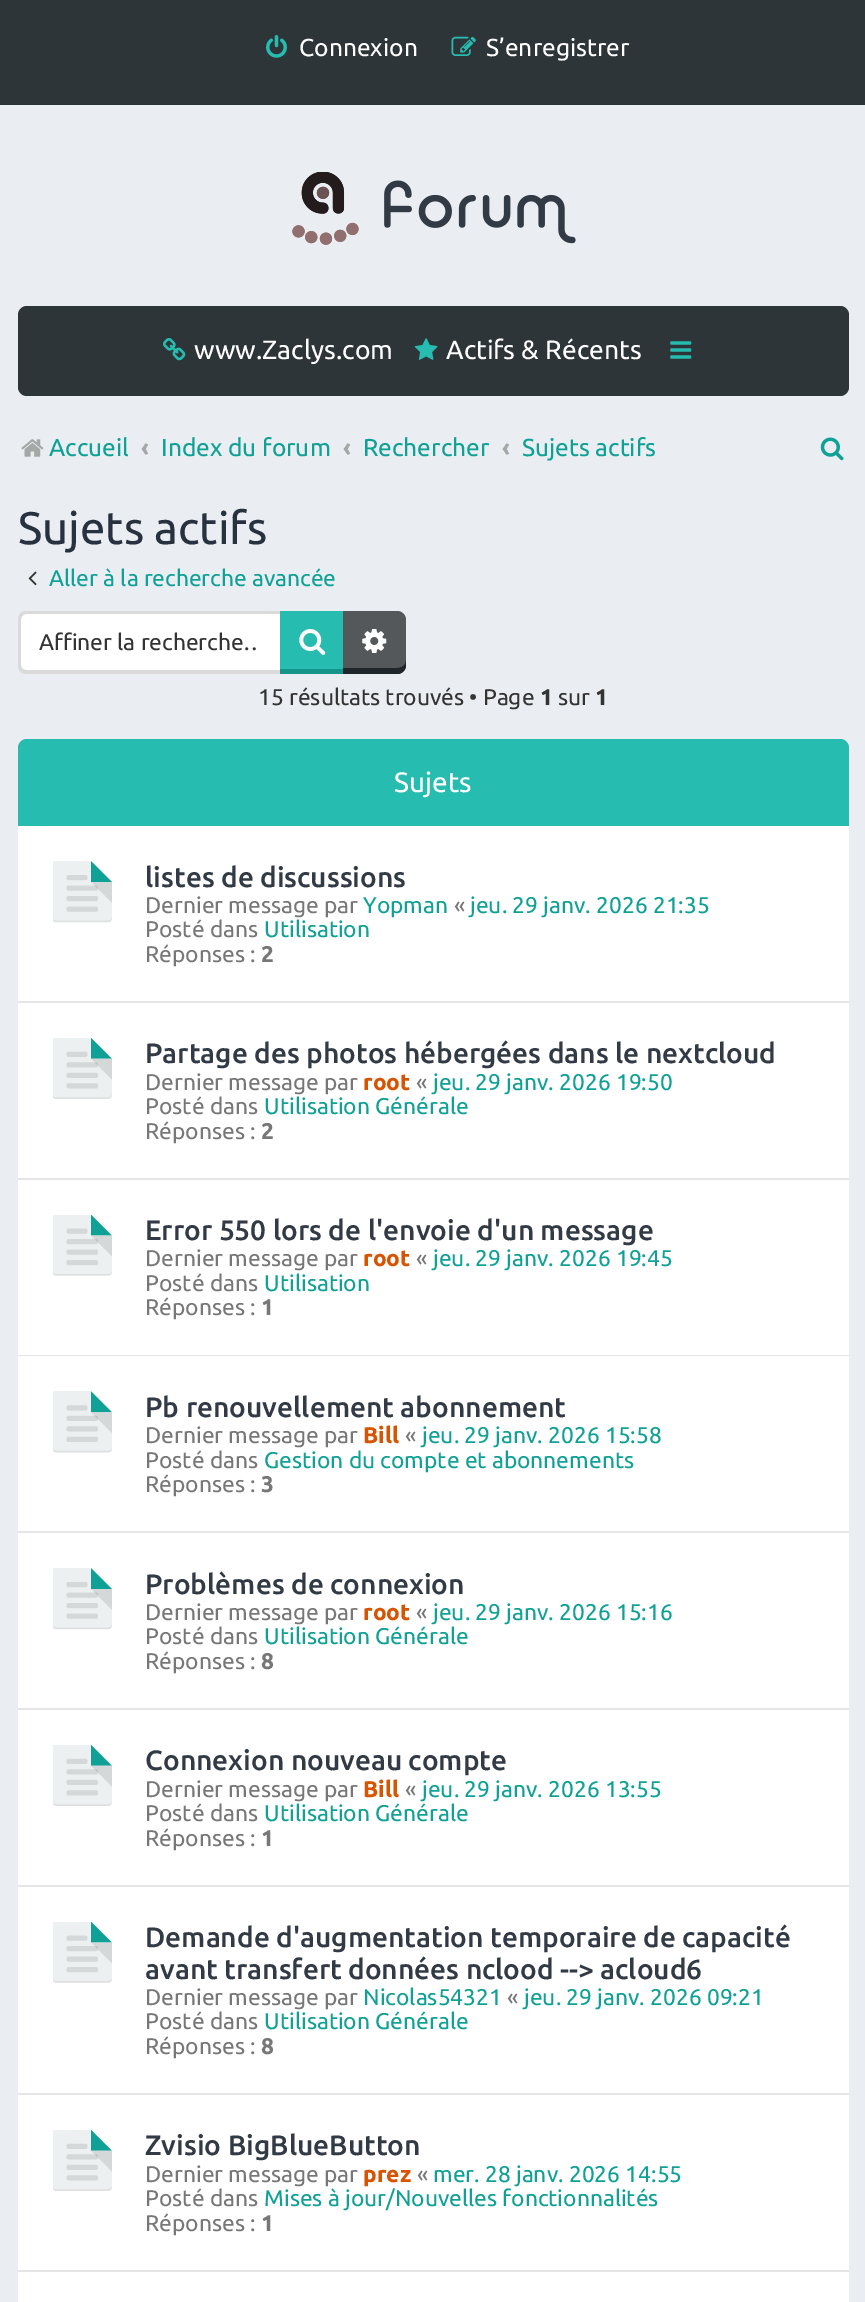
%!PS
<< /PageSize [865 2302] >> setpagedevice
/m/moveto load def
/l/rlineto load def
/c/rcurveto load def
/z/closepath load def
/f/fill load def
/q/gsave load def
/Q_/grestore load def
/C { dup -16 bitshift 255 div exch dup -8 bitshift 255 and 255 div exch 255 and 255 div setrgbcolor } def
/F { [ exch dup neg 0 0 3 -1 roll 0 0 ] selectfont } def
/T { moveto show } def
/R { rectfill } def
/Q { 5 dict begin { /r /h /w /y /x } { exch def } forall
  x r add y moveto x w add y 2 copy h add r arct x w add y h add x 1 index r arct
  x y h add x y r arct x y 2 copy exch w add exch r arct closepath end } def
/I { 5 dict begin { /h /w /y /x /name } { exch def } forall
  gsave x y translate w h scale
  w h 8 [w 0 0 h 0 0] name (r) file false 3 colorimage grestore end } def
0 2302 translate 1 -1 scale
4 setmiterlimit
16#EAEDF1 C
0 0 865 2302 R
16#2E3539 C
0 0 865 105 R
(1.rgb) 266 35 21 23 I
/Ubuntu-Regular 24.5 F
16#FFFFFF C
(Connexion) 299 56 T
(2.rgb) 451 36 25 20 I
(S’enregistrer) 486 56 T
(3.rgb) 292 172 284 73 I
16#2E3539 C
18 306 831 90 9 Q f
(4.rgb) 163 338 23 23 I
/Ubuntu-Regular 26.5 F
16#FFFFFF C
(www.Zaclys.com) 194 359 T
(5.rgb) 414 338 24 22 I
(Actifs & Récents) 446 359 T
(6.rgb) 670 341 22 18 I
(7.rgb) 21 439 23 18 I
/Ubuntu-Regular 24.5 F
16#0FA195 C
(Accueil) 49 456 T
/Ubuntu-Bold 24.5 F
16#A7A7A7 C
(‹) 141 456 T
/Ubuntu-Regular 24.5 F
16#0FA195 C
(Index du forum) 161 456 T
/Ubuntu-Bold 24.5 F
16#A7A7A7 C
(‹) 343 456 T
/Ubuntu-Regular 24.5 F
16#0FA195 C
(Rechercher) 363 456 T
/Ubuntu-Bold 24.5 F
16#A7A7A7 C
(‹) 502 456 T
/Ubuntu-Regular 24.5 F
16#0FA195 C
(Sujets actifs) 522 456 T
(8.rgb) 820 437 24 24 I
/Ubuntu-Regular 45.5 F
16#28313F C
(Sujets actifs) 18 544 T
(9.rgb) 28 571 9 15 I
/Ubuntu-Regular 22.75 F
16#0FA195 C
(Aller à la recherche avancée) 49 586 T
16#FFFFFF C
26 614 m 254 0 l 0 56 l -254 0 l -3 0 -5 -2 -5 -5 c 0 -46 l 0 -3 2 -5 5 -5 c z f
16#DADADA C
26 611 m 254 0 l 0 63 l -254 0 l -5 0 -8 -4 -8 -9 c 0 -45 l 0 -5 3 -9 8 -9 c z 26 614 m 254 0 l 0 56 l -254 0 l -3 0 -5 -2 -5 -5 c 0 -45 l 0 -3 2 -6 5 -6 c z eofill
q
39 630 217 25 rectclip
16#333333 C
(Affiner la recherche…) 39 650 T
Q_
16#26BCB0 C
280 611 63 58 R
16#15958A C
280 669 63 5 R
(10.rgb) 299 629 27 26 I
16#54585B C
343 611 m 54 0 l 5 0 9 4 9 9 c 0 45 l 0 5 -4 9 -9 9 c -54 0 l z f
16#21262A C
343 668 m 0 6 l 54 0 l 5 0 9 -4 9 -9 c 0 -5 l 0 5 -4 8 -9 8 c z f
(11.rgb) 362 629 25 24 I
16#333333 C
(15 résultats trouvés • Page) 258 705 T
/Ubuntu-Bold 22.75 F
(1) 540 705 T
/Ubuntu-Regular 22.75 F
(sur) 558 705 T
/Ubuntu-Bold 22.75 F
(1) 595 705 T
16#26BCB0 C
18 739 831 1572 9 Q f
/Ubuntu-Regular 28 F
16#FFFFFF C
(Sujets) 394 792 T
18 826 831 175 R
16#E5E5E5 C
18 1001 831 2 R
(12.rgb) 53 861 59 62 I
/Ubuntu-Medium 28 F
16#323A45 C
(listes de discussions) 145 887 T
/Ubuntu-Regular 22.75 F
16#777777 C
(Dernier message par) 145 913 T
16#0FA195 C
(Yopman) 363 913 T
16#777777 C
(«) 454 913 T
16#0FA195 C
(jeu. 29 janv. 2026 21:35) 470 913 T
16#777777 C
(Posté dans) 145 937 T
16#0FA195 C
(Utilisation) 264 937 T
16#777777 C
(Réponses :) 145 962 T
/Ubuntu-Bold 22.75 F
(2) 261 962 T
16#FFFFFF C
18 1003 831 175 R
16#E5E5E5 C
18 1178 831 2 R
(13.rgb) 53 1038 59 61 I
/Ubuntu-Medium 28 F
16#323A45 C
(Partage des photos hébergées dans le nextcloud) 145 1063 T
/Ubuntu-Regular 22.75 F
16#777777 C
(Dernier message par) 145 1090 T
/Ubuntu-Bold 22.75 F
16#D75402 C
(root) 363 1090 T
/Ubuntu-Regular 22.75 F
16#777777 C
(«) 416 1090 T
16#0FA195 C
(jeu. 29 janv. 2026 19:50) 433 1090 T
16#777777 C
(Posté dans) 145 1114 T
16#0FA195 C
(Utilisation Générale) 264 1114 T
16#777777 C
(Réponses :) 145 1139 T
/Ubuntu-Bold 22.75 F
(2) 261 1139 T
16#FFFFFF C
18 1180 831 175 R
16#E5E5E5 C
18 1355 831 1 R
(14.rgb) 53 1215 59 61 I
/Ubuntu-Medium 28 F
16#323A45 C
(Error 550 lors de l'envoie d'un message) 145 1240 T
/Ubuntu-Regular 22.75 F
16#777777 C
(Dernier message par) 145 1266 T
/Ubuntu-Bold 22.75 F
16#D75402 C
(root) 363 1266 T
/Ubuntu-Regular 22.75 F
16#777777 C
(«) 416 1266 T
16#0FA195 C
(jeu. 29 janv. 2026 19:45) 433 1266 T
16#777777 C
(Posté dans) 145 1291 T
16#0FA195 C
(Utilisation) 264 1291 T
16#777777 C
(Réponses :) 145 1315 T
/Ubuntu-Bold 22.75 F
(1) 261 1315 T
16#FFFFFF C
18 1356 831 175 R
16#E5E5E5 C
18 1531 831 2 R
(15.rgb) 53 1391 59 62 I
/Ubuntu-Medium 28 F
16#323A45 C
(Pb renouvellement abonnement) 145 1417 T
/Ubuntu-Regular 22.75 F
16#777777 C
(Dernier message par) 145 1443 T
/Ubuntu-Bold 22.75 F
16#D75402 C
(Bill) 363 1443 T
/Ubuntu-Regular 22.75 F
16#777777 C
(«) 405 1443 T
16#0FA195 C
(jeu. 29 janv. 2026 15:58) 422 1443 T
16#777777 C
(Posté dans) 145 1468 T
16#0FA195 C
(Gestion du compte et abonnements) 264 1468 T
16#777777 C
(Réponses :) 145 1492 T
/Ubuntu-Bold 22.75 F
(3) 261 1492 T
16#FFFFFF C
18 1533 831 175 R
16#E5E5E5 C
18 1708 831 2 R
(12.rgb) 53 1568 59 62 I
/Ubuntu-Medium 28 F
16#323A45 C
(Problèmes de connexion) 145 1594 T
/Ubuntu-Regular 22.75 F
16#777777 C
(Dernier message par) 145 1620 T
/Ubuntu-Bold 22.75 F
16#D75402 C
(root) 363 1620 T
/Ubuntu-Regular 22.75 F
16#777777 C
(«) 416 1620 T
16#0FA195 C
(jeu. 29 janv. 2026 15:16) 433 1620 T
16#777777 C
(Posté dans) 145 1644 T
16#0FA195 C
(Utilisation Générale) 264 1644 T
16#777777 C
(Réponses :) 145 1669 T
/Ubuntu-Bold 22.75 F
(8) 261 1669 T
16#FFFFFF C
18 1710 831 175 R
16#E5E5E5 C
18 1885 831 2 R
(13.rgb) 53 1745 59 61 I
/Ubuntu-Medium 28 F
16#323A45 C
(Connexion nouveau compte) 145 1770 T
/Ubuntu-Regular 22.75 F
16#777777 C
(Dernier message par) 145 1797 T
/Ubuntu-Bold 22.75 F
16#D75402 C
(Bill) 363 1797 T
/Ubuntu-Regular 22.75 F
16#777777 C
(«) 405 1797 T
16#0FA195 C
(jeu. 29 janv. 2026 13:55) 422 1797 T
16#777777 C
(Posté dans) 145 1821 T
16#0FA195 C
(Utilisation Générale) 264 1821 T
16#777777 C
(Réponses :) 145 1846 T
/Ubuntu-Bold 22.75 F
(1) 261 1846 T
16#FFFFFF C
18 1887 831 206 R
16#E5E5E5 C
18 2093 831 2 R
(14.rgb) 53 1922 59 61 I
/Ubuntu-Medium 28 F
16#323A45 C
(Demande d'augmentation temporaire de capacité) 145 1947 T
(avant transfert données nclood --> acloud6) 145 1979 T
/Ubuntu-Regular 22.75 F
16#777777 C
(Dernier message par) 145 2005 T
16#0FA195 C
(Nicolas54321) 363 2005 T
16#777777 C
(«) 507 2005 T
16#0FA195 C
(jeu. 29 janv. 2026 09:21) 524 2005 T
16#777777 C
(Posté dans) 145 2029 T
16#0FA195 C
(Utilisation Générale) 264 2029 T
16#777777 C
(Réponses :) 145 2054 T
/Ubuntu-Bold 22.75 F
(8) 261 2054 T
16#FFFFFF C
18 2095 831 175 R
16#E5E5E5 C
18 2270 831 2 R
(13.rgb) 53 2130 59 61 I
/Ubuntu-Medium 28 F
16#323A45 C
(Zvisio BigBlueButton) 145 2155 T
/Ubuntu-Regular 22.75 F
16#777777 C
(Dernier message par) 145 2182 T
/Ubuntu-Bold 22.75 F
16#D75402 C
(prez) 363 2182 T
/Ubuntu-Regular 22.75 F
16#777777 C
(«) 417 2182 T
16#0FA195 C
(mer. 28 janv. 2026 14:55) 433 2182 T
16#777777 C
(Posté dans) 145 2206 T
16#0FA195 C
(Mises à jour/Nouvelles fonctionnalités) 264 2206 T
16#777777 C
(Réponses :) 145 2231 T
/Ubuntu-Bold 22.75 F
(1) 261 2231 T
16#FFFFFF C
18 2272 831 30 R
showpage
